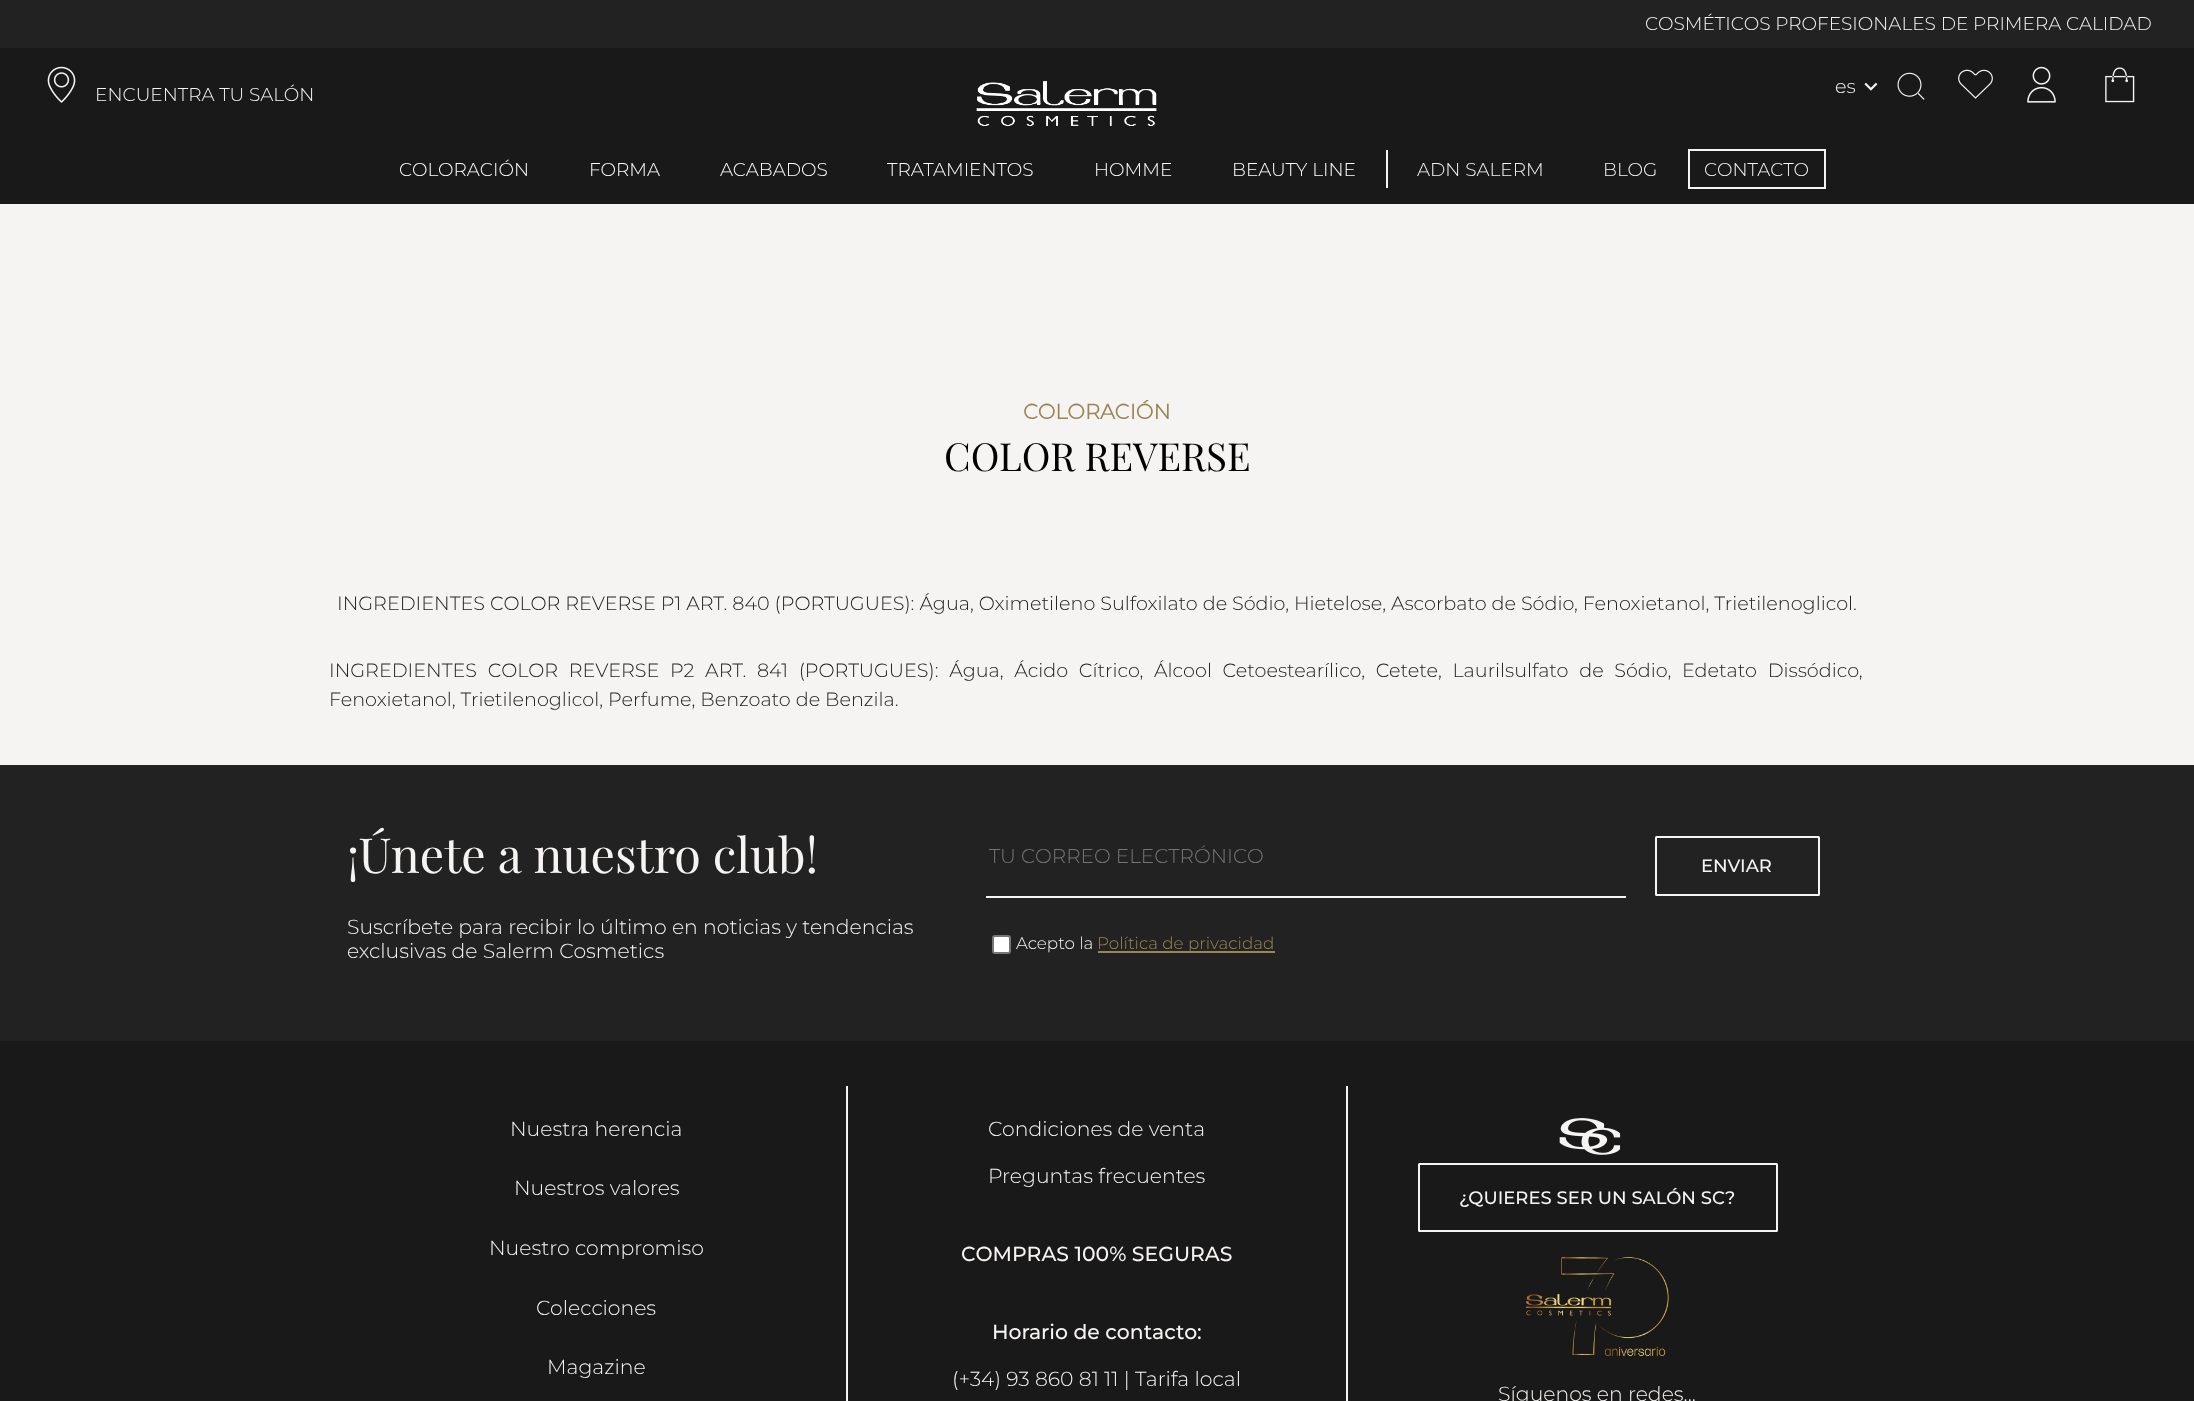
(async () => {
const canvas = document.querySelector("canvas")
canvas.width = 2194
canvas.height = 1401
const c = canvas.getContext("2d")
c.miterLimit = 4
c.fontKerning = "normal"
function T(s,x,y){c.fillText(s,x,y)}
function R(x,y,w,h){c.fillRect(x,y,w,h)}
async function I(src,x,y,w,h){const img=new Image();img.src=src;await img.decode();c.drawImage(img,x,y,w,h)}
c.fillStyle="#f6f4f2"
R(0,0,2194,1401)
c.fillStyle="#1a1919"
R(0,48,2194,156)
c.fillStyle="#222"
R(0,0,2194,48)
c.font="300 18.5px Montserrat"
c.fillStyle="#f6f4f2"
T("COSMÉTICOS PROFESIONALES DE PRIMERA CALIDAD",1645,30)
await I("1.png",47,66,29,37)
T("ENCUENTRA TU SALÓN",95,101)
await I("2.png",976,81,181,45)
c.font="300 19.2px Montserrat"
T("es",1835,93)
await I("3.png",1864,82,14,9)
await I("4.png",1897,72,28,28)
await I("5.png",1958,69,35,30)
await I("6.png",2027,66,29,37)
await I("7.png",2105,67,30,36)
c.font="300 18.5px Montserrat"
c.fillStyle="#fff"
T("COLORACIÓN",399,176)
T("FORMA",589,176)
T("ACABADOS",720,176)
T("TRATAMIENTOS",887,176)
T("HOMME",1094,176)
c.fillStyle="#f6f4f2"
R(1386,150,2,38)
c.fillStyle="#fff"
T("BEAUTY LINE",1232,176)
c.fillStyle="#f6f4f2"
T("ADN SALERM",1417,176)
T("BLOG",1603,176)
c.strokeStyle="#f6f4f2"
c.lineWidth=2
c.strokeRect(1689,150,136,38)
T("CONTACTO",1704,176)
c.font="bold 21px Montserrat"
c.fillStyle="#9a8654"
T("COLORACIÓN",1023,419)
c.font="48px Playfair Display"
c.fillStyle="#000"
T("COLOR REVERSE",944,471)
c.font="300 19.2px Montserrat"
c.fillStyle="#222"
T("INGREDIENTES COLOR REVERSE P1 ART. 840 (PORTUGUES): Água, Oximetileno Sulfoxilato de Sódio, Hietelose, Ascorbato de Sódio, Fenoxietanol, Trietilenoglicol.",337,610)
c.wordSpacing="5.75px"
T("INGREDIENTES COLOR REVERSE P2 ART. 841 (PORTUGUES): Água, Ácido Cítrico, Álcool Cetoestearílico, Cetete, Laurilsulfato de Sódio, Edetato Dissódico,",329,677)
c.wordSpacing="0px"
T("Fenoxietanol, Trietilenoglicol, Perfume, Benzoato de Benzila.",329,706)
c.fillStyle="#1a1919"
R(0,1041,2194,360)
c.fillStyle="#222"
R(0,765,2194,276)
c.font="60px Playfair Display"
c.fillStyle="#f6f4f2"
T("¡Únete a nuestro club!",347,873)
c.font="300 20.4px Montserrat"
T("Suscríbete para recibir lo último en noticias y tendencias",347,934)
T("exclusivas de Salerm Cosmetics",347,958)
R(986,896,640,2)
c.font="300 20px Montserrat"
c.fillStyle="#757575"
T("TU CORREO ELECTRÓNICO",989,863)
c.fillStyle="#fff"
c.beginPath()
c.roundRect(993,936,17,17,2)
c.fill()
c.strokeStyle="#767676"
c.stroke()
c.font="300 16.75px Montserrat"
c.fillStyle="#f6f4f2"
T("Acepto la",1016,949)
c.fillStyle="#9a8654"
R(1098,951,177,2)
T("Política de privacidad",1097,949)
c.beginPath()
c.roundRect(1656,837,163,58,.5)
c.strokeStyle="#f6f4f2"
c.stroke()
c.font="500 18px Montserrat"
c.fillStyle="#f6f4f2"
T("ENVIAR",1701,872)
R(846,1086,2,315)
c.font="300 20.4px Montserrat"
T("Nuestra herencia",510,1136)
T("Nuestros valores",514,1195)
T("Nuestro compromiso",489,1255)
T("Colecciones",536,1315)
T("Magazine",547,1374)
R(1346,1086,2,315)
T("Condiciones de venta",988,1136)
T("Preguntas frecuentes",988,1183)
c.font="500 20.4px Montserrat"
T("COMPRAS 100% SEGURAS",961,1261)
T("Horario de contacto:",992,1339)
c.font="300 20.4px Montserrat"
T("(+34) 93 860 81 11 | Tarifa local",952,1386)
await I("8.png",1559,1118,62,37)
c.beginPath()
c.roundRect(1419,1164,358,67,.5)
c.stroke()
c.font="500 18px Montserrat"
T("¿QUIERES SER UN SALÓN SC?",1459,1204)
await I("9.png",1526,1257,143,99)
c.font="300 20.4px Montserrat"
T("Síguenos en redes...",1498,1401)
})()
